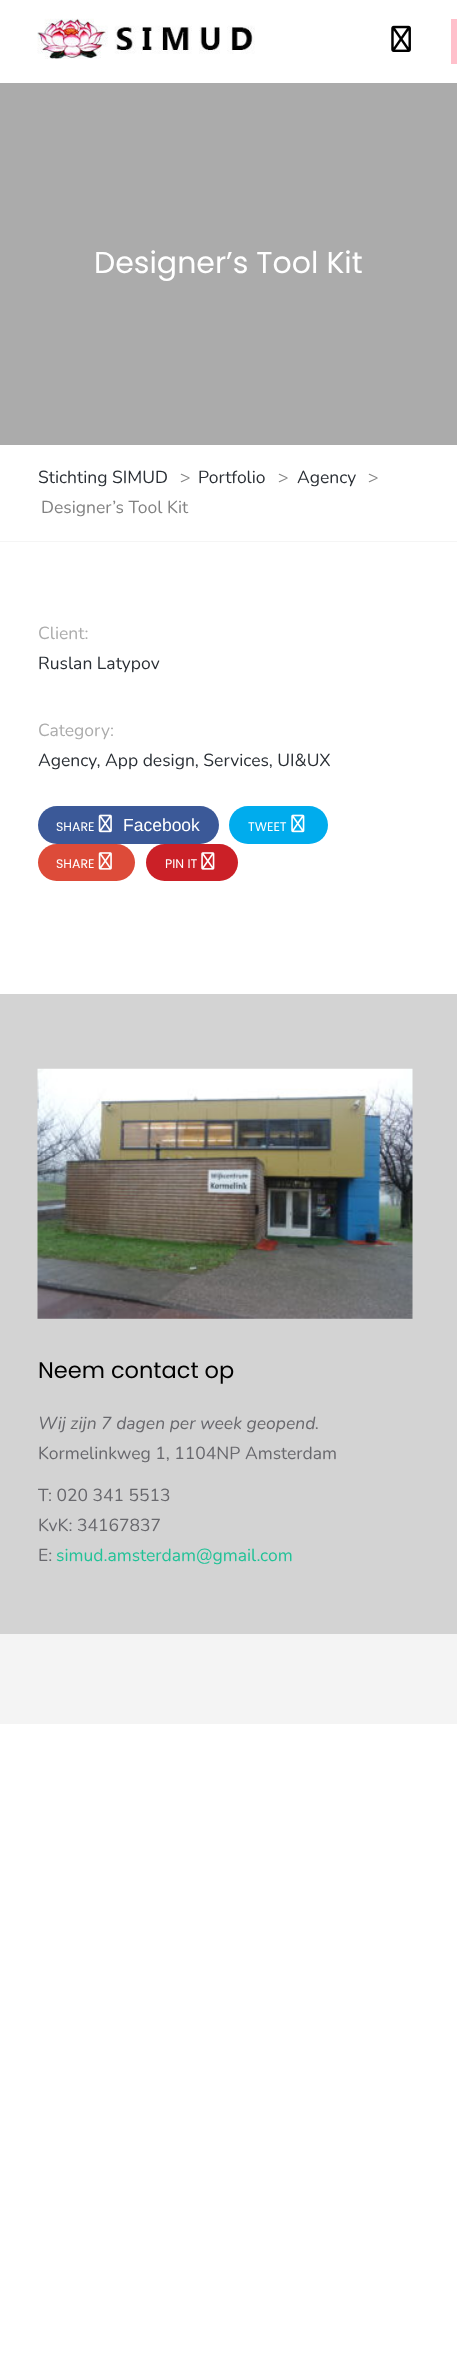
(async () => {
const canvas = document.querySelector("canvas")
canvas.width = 457
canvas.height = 2358
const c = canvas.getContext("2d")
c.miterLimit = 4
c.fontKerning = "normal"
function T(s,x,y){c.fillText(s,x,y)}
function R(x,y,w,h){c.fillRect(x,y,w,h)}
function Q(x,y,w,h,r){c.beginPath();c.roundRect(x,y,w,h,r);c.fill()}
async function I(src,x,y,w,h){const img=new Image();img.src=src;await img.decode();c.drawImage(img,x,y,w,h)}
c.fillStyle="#fff"
R(0,0,457,2358)
c.fillStyle="#ffc0cb"
R(451,19,6,45)
await I("1.png",37,18,218,41)
await I("2.png",391,25,20,27)
c.fillStyle="#ababab"
R(0,83,457,362)
c.font="30px Poppins"
c.fillStyle="#fff"
T("Designer’s Tool Kit",94,273)
c.fillStyle="#f5f5f5"
R(0,541,457,1)
c.font="17.5px Nunito"
c.fillStyle="#2a2f35"
T("Stichting SIMUD",38,483)
c.fillStyle="#828282"
T(">",180,483)
c.fillStyle="#2a2f35"
T("Portfolio",198,483)
c.fillStyle="#828282"
T(">",278,483)
c.fillStyle="#2a2f35"
T("Agency",297,483)
c.fillStyle="#828282"
T(">",368,483)
T("Designer’s Tool Kit",41,513)
c.fillStyle="#acacac"
T("Client:",38,639)
c.fillStyle="#2a2f35"
T("Ruslan Latypov",38,669)
c.fillStyle="#acacac"
T("Category:",38,736)
c.fillStyle="#2a2f35"
T("Agency, App design, Services, UI&UX",38,766)
c.fillStyle="#3b5998"
Q(38,806,181,38,19)
c.font="12.5px Poppins"
c.fillStyle="#fff"
T("SHARE",56,831)
await I("3.png",98,814,14,19)
c.font="17.5px Liberation Sans"
T("Facebook",123,831)
c.fillStyle="#00aced"
Q(229,806,99,38,19)
c.font="12.5px Poppins"
c.fillStyle="#fff"
T("TWEET",248,831)
await I("4.png",291,814,14,19)
c.fillStyle="#dd4b39"
Q(38,844,97,37,18.5)
c.fillStyle="#fff"
T("SHARE",56,868)
await I("5.png",98,852,14,18)
c.fillStyle="#cb2027"
Q(146,844,92,37,18.5)
c.fillStyle="#fff"
T("PIN IT",165,868)
await I("6.png",201,852,14,18)
c.fillStyle="#d3d3d3"
R(0,994,457,640)
await I("7.png",37,1068,376,251)
c.font="22.5px Poppins"
c.fillStyle="#000"
T("Neem contact op",38,1378)
c.font="italic 17.5px Nunito"
c.fillStyle="#68686d"
T("Wij zijn 7 dagen per week geopend.",38,1429)
c.font="17.5px Nunito"
T("Kormelinkweg 1, 1104NP Amsterdam",38,1459)
T("T: 020 341 5513",38,1501)
T("KvK: 34167837",38,1531)
T("E:",38,1561)
c.fillStyle="#21c297"
T("simud.amsterdam@gmail.com",56,1561)
c.fillStyle="#f4f4f4"
R(0,1634,457,90)
})()
